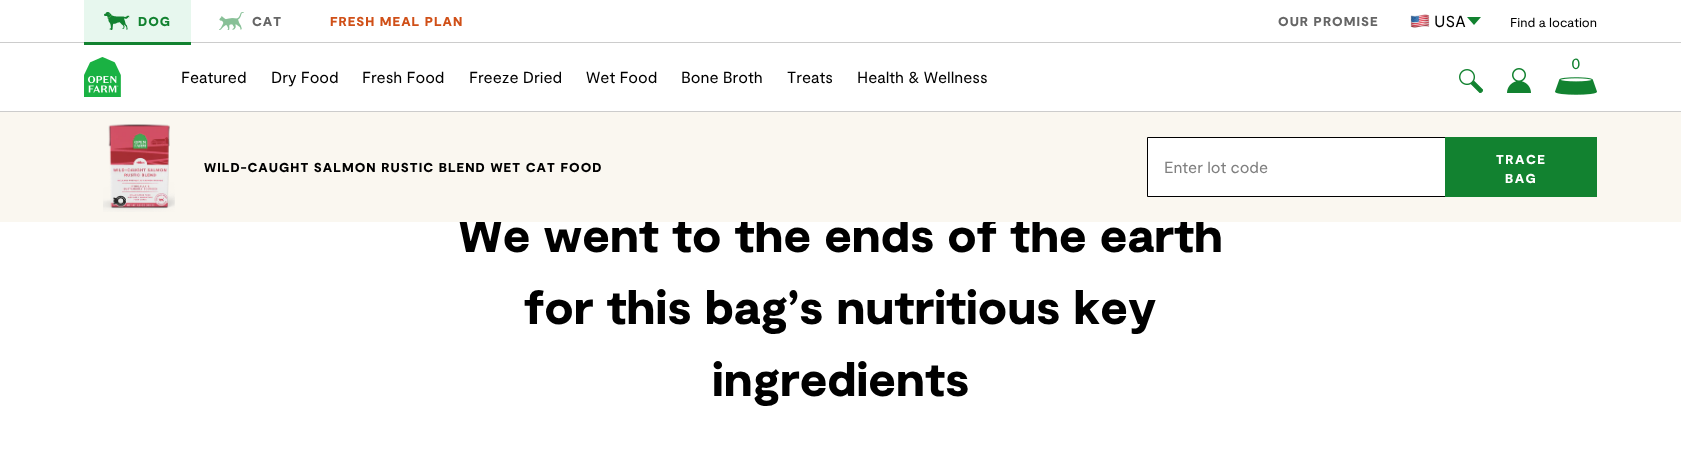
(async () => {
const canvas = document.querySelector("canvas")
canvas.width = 1681
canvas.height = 463
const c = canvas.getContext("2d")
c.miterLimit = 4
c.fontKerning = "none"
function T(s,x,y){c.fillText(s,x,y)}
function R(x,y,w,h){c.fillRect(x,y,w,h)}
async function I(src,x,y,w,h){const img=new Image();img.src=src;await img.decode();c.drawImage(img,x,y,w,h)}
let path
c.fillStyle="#fff"
R(0,0,1681,463)
c.fillStyle="#ccc"
R(0,42,1681,1)
c.fillStyle="#e7f7ee"
R(84,0,107,42)
await I("1.png",104,12,26,18)
c.letterSpacing="1px"
c.font="900 13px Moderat"
c.fillStyle="#128230"
T("DOG",138,26)
R(84,42,107,3)
await I("2.png",219,12,25,18)
c.fillStyle="#666"
T("CAT",252,26)
c.fillStyle="#d05018"
T("FRESH MEAL PLAN",330,26)
c.fillStyle="#666"
T("OUR PROMISE",1278,26)
await I("3.png",1410,14,20,14)
c.letterSpacing="0px"
c.font="16px Moderat"
c.fillStyle="#000"
T("USA",1434,27)
c.fillStyle="#128230"
path = new Path2D("M1481 17l-7 8l-7-8z")
c.fill(path)
c.font="13px Moderat"
c.fillStyle="#000"
T("Find a location",1510,27)
c.fillStyle="#ccc"
R(0,111,1681,1)
c.font="16px Moderat"
c.fillStyle="#128230"
T("0",1571,69)
await I("4.png",1555,77,42,18)
await I("5.png",1459,69,24,24)
await I("6.png",1507,68,24,25)
await I("7.png",84,57,37,40)
c.fillStyle="#000"
T("Featured",181,83)
T("Dry Food",271,83)
T("Fresh Food",362,83)
T("Freeze Dried",469,83)
T("Wet Food",586,83)
T("Bone Broth",681,83)
T("Treats",787,83)
T("Health & Wellness",857,83)
c.font="900 48px Moderat"
T("We went to the ends of the earth",458,252)
c.fillStyle="#faf7f0"
R(0,112,1681,110)
await I("8.png",103,124,72,88)
c.letterSpacing="1.05px"
c.font="900 13px Moderat"
c.fillStyle="#000"
T("WILD-CAUGHT SALMON RUSTIC BLEND WET CAT FOOD",204,172)
c.fillStyle="#fff"
c.beginPath()
c.rect(1147.5,137.5,298,59)
c.fill()
c.strokeStyle="#000"
c.stroke()
c.letterSpacing="0px"
c.font="16px Moderat"
c.fillStyle="#808080"
T("Enter lot code",1164,173)
c.fillStyle="#128230"
R(1445,137,152,60)
c.letterSpacing="1.5px"
c.font="900 13px Moderat"
c.fillStyle="#fff"
T("TRACE",1496,164)
T("BAG",1505,183)
c.letterSpacing="0px"
c.font="900 48px Moderat"
c.fillStyle="#000"
T("for this bag’s nutritious key",524,324)
T("ingredients",712,396)
})()
